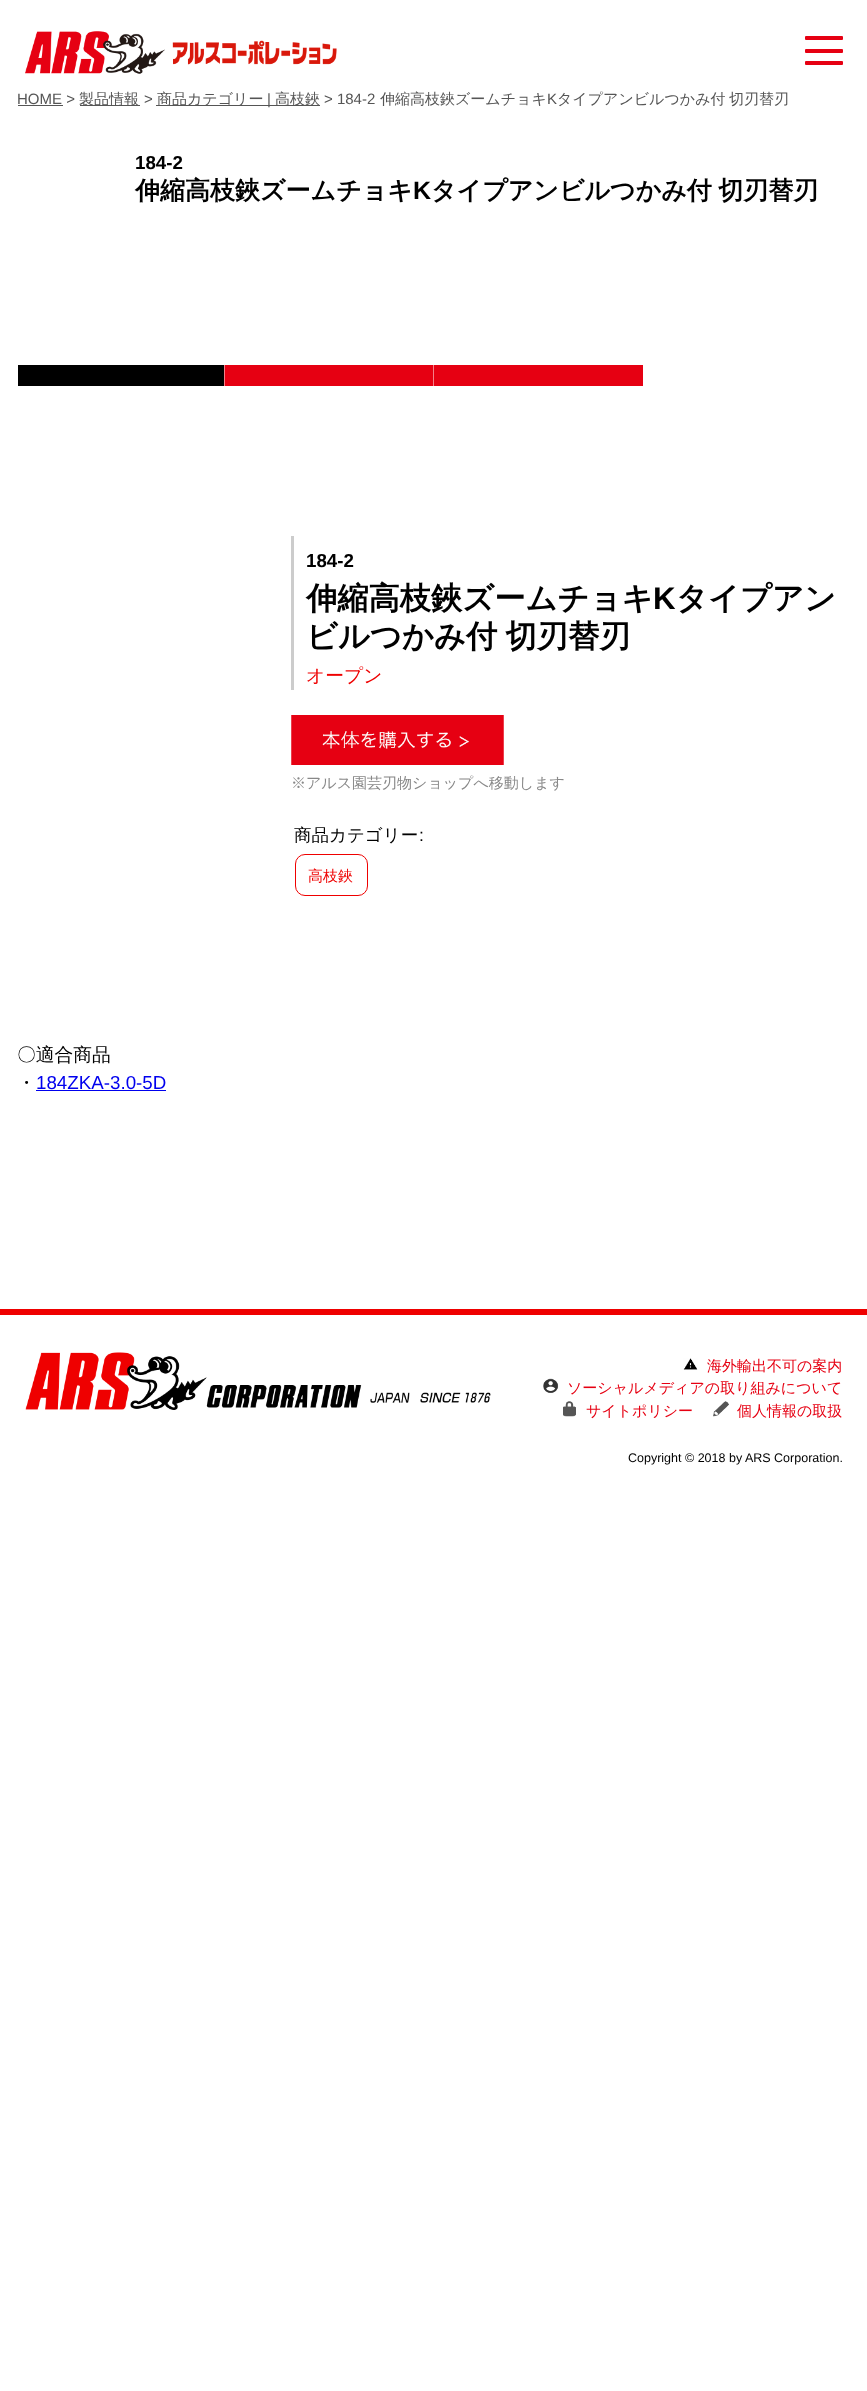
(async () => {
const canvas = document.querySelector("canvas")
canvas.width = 867
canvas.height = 2391
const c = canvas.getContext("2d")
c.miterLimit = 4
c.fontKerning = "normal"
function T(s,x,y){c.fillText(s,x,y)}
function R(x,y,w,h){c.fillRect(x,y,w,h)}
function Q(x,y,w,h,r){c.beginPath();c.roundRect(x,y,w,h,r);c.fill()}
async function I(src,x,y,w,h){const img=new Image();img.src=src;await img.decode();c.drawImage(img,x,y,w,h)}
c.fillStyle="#fff"
R(0,0,867,2391)
await I("1.png",25,31,312,43)
c.fillStyle="#e60012"
Q(805,49,38,4,1)
Q(805,36,38,4,1)
Q(805,61,38,4,1)
c.font="15px Liberation Sans"
c.fillStyle="#555"
T("HOME >",17,104)
R(18,105,45,1)
R(80,105,60,1)
c.font="500 15px WenQuanYi Zen Hei"
T("製品情報",79,104)
c.font="15px Liberation Sans"
T(">",144,104)
R(156,105,164,1)
c.font="500 15px WenQuanYi Zen Hei"
T("商品カテゴリー",157,104)
c.font="15px Liberation Sans"
T("|",267,104)
c.font="500 15px WenQuanYi Zen Hei"
T("高枝鋏",275,104)
c.font="15px Liberation Sans"
T("> 184-2",324,104)
c.font="500 15px WenQuanYi Zen Hei"
T("伸縮高枝鋏ズームチョキ",380,104)
c.font="15px Liberation Sans"
T("K",547,104)
c.font="500 15px WenQuanYi Zen Hei"
T("タイプアンビルつかみ付",557,104)
T("切刃替刃",729,104)
c.font="bold 18.75px Liberation Sans"
c.fillStyle="#000"
T("184-2",135,169)
c.font="bold 25px WenQuanYi Zen Hei"
T("伸縮高枝鋏ズームチョキ",135,199)
c.font="bold 25px Liberation Sans"
T("K",413,199)
c.wordSpacing="-1px"
c.font="bold 25px WenQuanYi Zen Hei"
T("タイプアンビルつかみ付 切刃替刃",431,199)
c.fillStyle="#f38089"
R(224,365,1,21)
c.fillStyle="#000"
R(18,365,206,21)
c.fillStyle="#e60012"
R(225,365,208,21)
c.fillStyle="#f38089"
R(433,365,1,21)
c.fillStyle="#e60012"
R(434,365,209,21)
c.fillStyle="#ccc"
R(291,536,3,154)
c.wordSpacing="0px"
c.font="bold 18.75px Liberation Sans"
c.fillStyle="#000"
T("184-2",306,567)
c.font="bold 31.25px WenQuanYi Zen Hei"
T("伸縮高枝鋏ズームチョキ",306,609)
c.font="bold 31.25px Liberation Sans"
T("K",653,609)
c.font="bold 31.25px WenQuanYi Zen Hei"
T("タイプアン",676,609)
c.wordSpacing="-1px"
T("ビルつかみ付 切刃替刃",306,647)
c.wordSpacing="0px"
c.font="500 18.75px WenQuanYi Zen Hei"
c.fillStyle="#ef0000"
T("オープン",306,682)
await I("2.png",291,715,213,50)
c.font="500 15px WenQuanYi Zen Hei"
c.fillStyle="#888"
T("※アルス園芸刃物ショップへ移動します",291,788)
c.font="500 17.5px WenQuanYi Zen Hei"
c.fillStyle="#000"
T("商品カテゴリー",294,841)
c.font="17.5px Liberation Sans"
T(":",419,841)
c.beginPath()
c.roundRect(295.5,854.5,72,41,9.5)
c.strokeStyle="#ef0000"
c.stroke()
c.font="500 15px WenQuanYi Zen Hei"
c.fillStyle="#ef0000"
T("高枝鋏",308,881)
c.font="500 18.75px WenQuanYi Zen Hei"
c.fillStyle="#000"
T("〇適合商品",17,1061)
T("・",17,1089)
c.font="18.75px Liberation Sans"
c.fillStyle="#00e"
T("184ZKA-3.0-5D",36,1089)
R(36,1090,130,1)
c.fillStyle="#ef0000"
R(0,1309,867,6)
await I("3.png",25,1352,466,58)
await I("4.png",683,1358,15,12)
c.font="500 15px WenQuanYi Zen Hei"
c.fillStyle="#e60012"
T("海外輸出不可の案内",707,1371)
await I("5.png",543,1378,16,15)
T("ソーシャルメディアの取り組みについて",567,1393)
await I("6.png",563,1401,13,16)
T("サイトポリシー",586,1416)
await I("7.png",713,1401,16,16)
T("個人情報の取扱",737,1416)
c.font="12.5px Liberation Sans"
c.fillStyle="#000"
T("Copyright © 2018 by ARS Corporation.",628,1462)
})()
